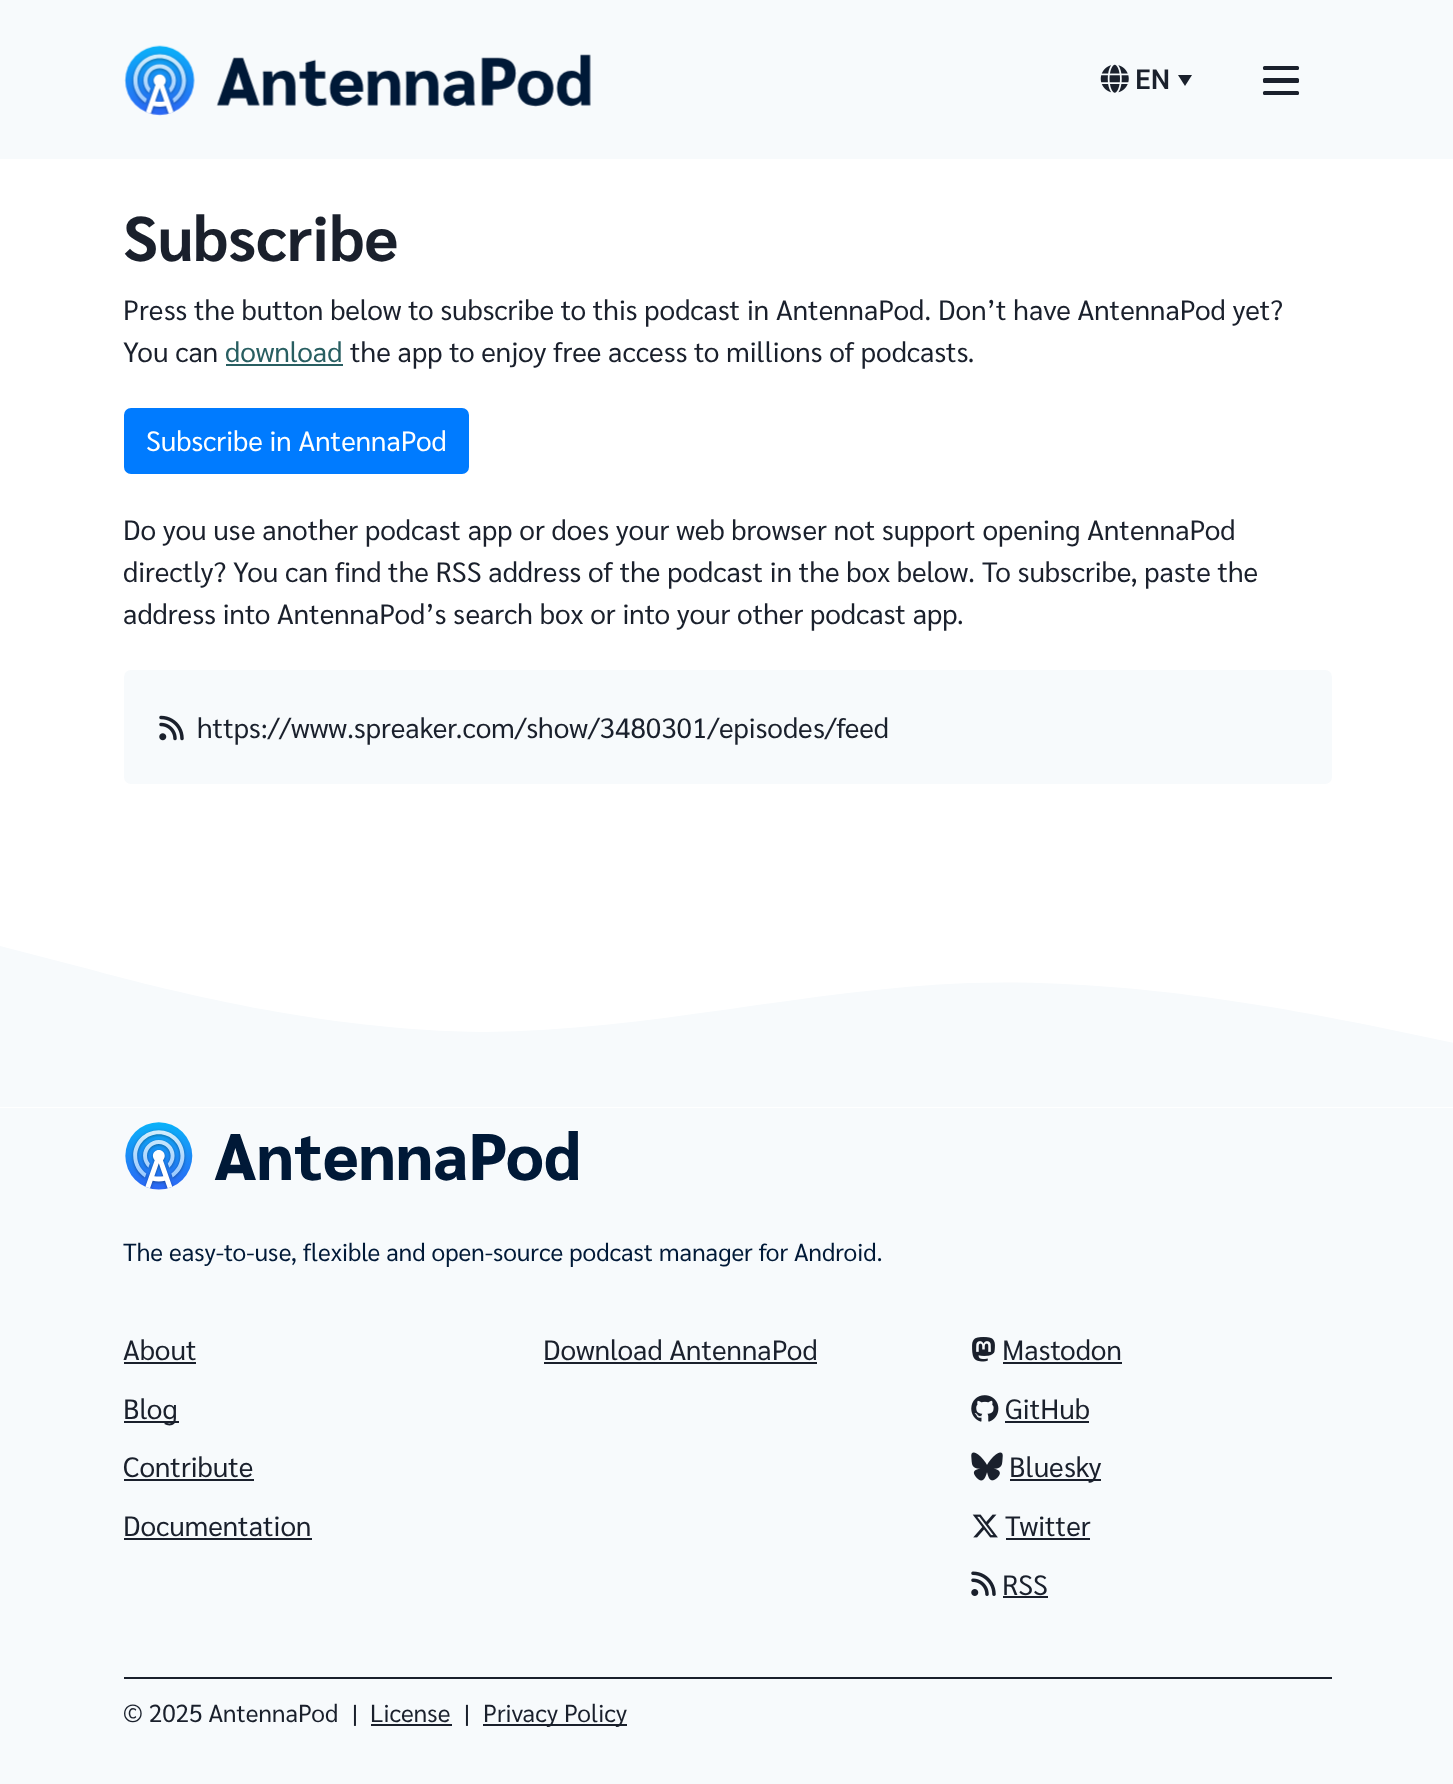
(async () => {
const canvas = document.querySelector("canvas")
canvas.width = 1453
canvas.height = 1784
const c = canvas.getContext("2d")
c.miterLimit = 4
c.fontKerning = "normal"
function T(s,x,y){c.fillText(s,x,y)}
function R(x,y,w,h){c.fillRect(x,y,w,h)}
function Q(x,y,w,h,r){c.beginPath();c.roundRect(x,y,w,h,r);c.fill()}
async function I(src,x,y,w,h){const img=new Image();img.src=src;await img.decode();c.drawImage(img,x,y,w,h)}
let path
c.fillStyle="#fff"
R(0,0,1453,1784)
c.fillStyle="#f7fafc"
R(0,0,1453,159)
await I("1.png",124,45,467,71)
await I("2.png",1100,64,29,29)
c.font="600 28px Sarabun"
c.fillStyle="#1a202c"
T("EN",1135,89)
path = new Path2D("M1178 75h14l-7 11z")
c.fill(path)
Q(1263,66,36,4,1.5)
Q(1263,78,36,5,1.5)
Q(1263,91,36,4,1.5)
c.font="bold 63px Sarabun"
T("Subscribe",123,261)
c.font="28px Sarabun"
T("Press the button below to subscribe to this podcast in AntennaPod. Don’t have AntennaPod yet?",123,320)
T("You can",123,362)
c.fillStyle="#285e61"
T("download",225,362)
R(226,364,117,2)
c.fillStyle="#1a202c"
T("the app to enjoy free access to millions of podcasts.",350,362)
c.fillStyle="#007bff"
c.beginPath()
c.roundRect(125,409,343,64,6)
c.fill()
c.strokeStyle="#007bff"
c.lineWidth=2
c.stroke()
c.fillStyle="#fff"
T("Subscribe in AntennaPod",146,451)
c.fillStyle="#1a202c"
T("Do you use another podcast app or does your web browser not support opening AntennaPod",123,540)
T("directly? You can find the RSS address of the podcast in the box below. To subscribe, paste the",123,582)
T("address into AntennaPod’s search box or into your other podcast app.",123,624)
c.fillStyle="#f7fafc"
Q(124,670,1208,114,7)
await I("3.png",159,715,25,26)
c.fillStyle="#1a202c"
T("https://www.spreaker.com/show/3480301/episodes/feed",197,738)
c.fillStyle="#f7fafc"
path = new Path2D("M0 946l81 21c81 22 242 64 404 65c161-1 323-43 484-49c162-5 324 27 404 43l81 17v64h-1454z")
c.fill(path)
R(0,1108,1453,676)
await I("4.png",125,1122,453,68)
c.font="24.5px Sarabun"
c.fillStyle="#001937"
T("The easy-to-use, flexible and open-source podcast manager for Android.",123,1261)
c.font="28px Sarabun"
c.fillStyle="#1a202c"
T("About",123,1360)
R(124,1362,72,2)
R(124,1421,55,2)
T("Blog",123,1419)
T("Contribute",123,1477)
R(124,1479,130,2)
T("Documentation",123,1536)
R(124,1538,188,2)
T("Download AntennaPod",543,1360)
R(544,1362,273,2)
await I("5.png",972,1337,23,25)
T("Mastodon",1002,1360)
R(1003,1362,119,2)
await I("6.png",971,1395,28,27)
T("GitHub",1005,1419)
R(1005,1421,84,2)
await I("7.png",971,1452,32,29)
R(1010,1479,91,2)
T("Bluesky",1009,1477)
await I("8.png",972,1514,26,24)
T("Twitter",1005,1536)
R(1006,1538,84,2)
await I("9.png",971,1571,25,25)
T("RSS",1002,1595)
R(1003,1596,45,2)
R(124,1677,1208,2)
c.font="24.5px Sarabun"
T("© 2025 AntennaPod",123,1722)
T("|",352,1722)
T("License",370,1722)
R(371,1724,81,2)
T("|",464,1722)
R(483,1724,144,2)
T("Privacy Policy",483,1722)
})()
